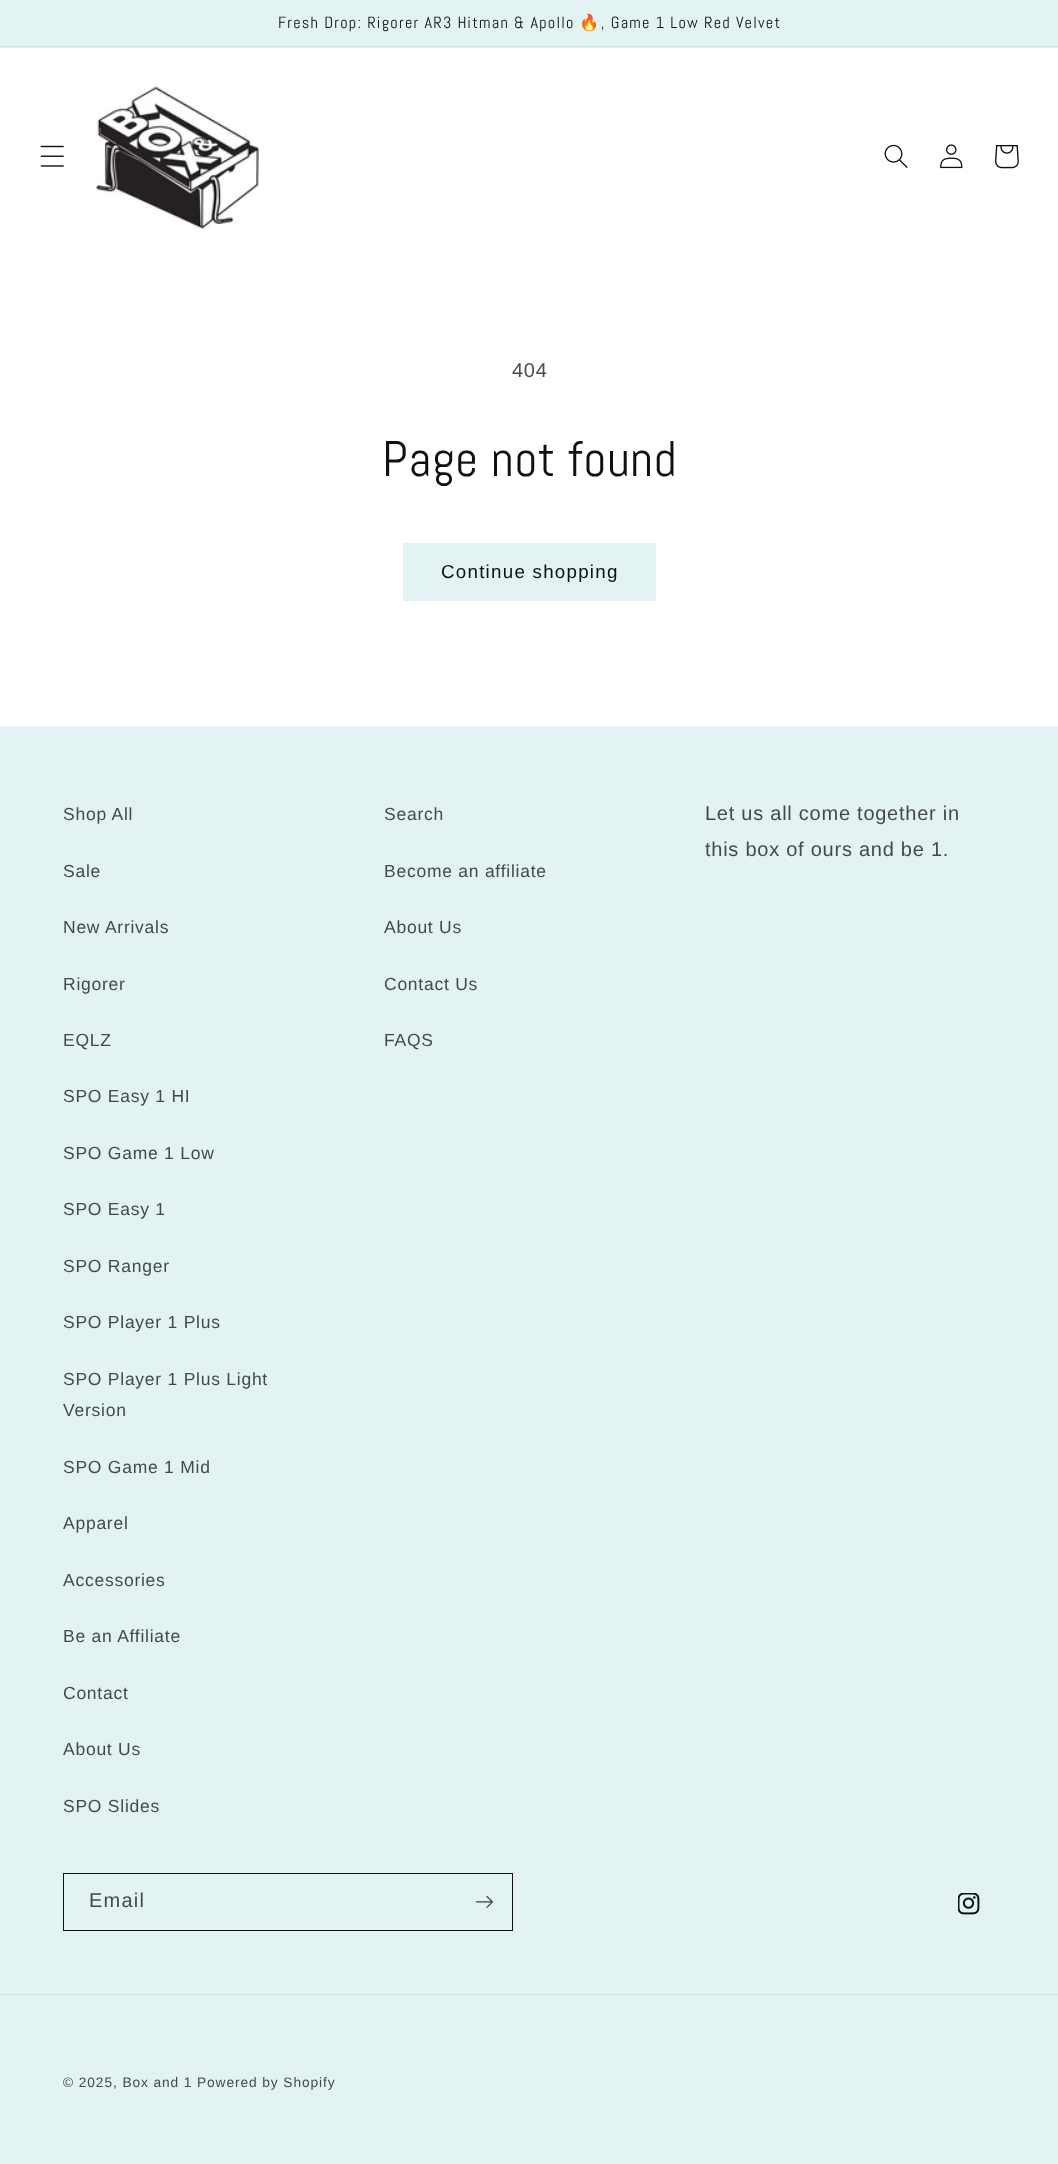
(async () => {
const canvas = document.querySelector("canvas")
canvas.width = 1058
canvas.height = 2164
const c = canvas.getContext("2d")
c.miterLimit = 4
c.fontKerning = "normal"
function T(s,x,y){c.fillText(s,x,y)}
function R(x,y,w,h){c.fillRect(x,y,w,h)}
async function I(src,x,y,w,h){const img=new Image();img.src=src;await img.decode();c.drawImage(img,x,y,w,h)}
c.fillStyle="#fff"
R(0,0,1058,2164)
c.fillStyle="#e3f3f4"
R(0,0,1058,48)
c.fillStyle="#d2e1e2"
R(0,46,1058,1)
c.letterSpacing="1.25px"
c.font="16.25px Abel"
c.fillStyle="#101010"
T("Fresh Drop: Rigorer AR3 Hitman & Apollo",278,28)
c.font="16.25px Noto Color Emoji"
T("🔥",579,28)
c.font="16.25px Abel"
T(", Game 1 Low Red Velvet",601,28)
await I("1.png",40,145,24,22)
await I("2.png",95,86,164,143)
await I("3.png",884,144,24,24)
await I("4.png",940,144,23,25)
await I("5.png",995,145,24,24)
c.letterSpacing="0.75px"
c.font="20px Liberation Sans"
c.fillStyle="#4c4c4c"
T("404",512,377)
c.font="50px Abel"
c.fillStyle="#101010"
T("Page not found",382,476)
c.fillStyle="#e3f3f4"
R(403,543,253,58)
c.letterSpacing="1.25px"
c.font="18.75px Liberation Sans"
c.fillStyle="#101010"
T("Continue shopping",441,578)
c.fillStyle="#e3f3f4"
R(0,726,1058,1438)
c.letterSpacing="0.75px"
c.font="17.5px Liberation Sans"
c.fillStyle="#454949"
T("Shop All",63,820)
T("Sale",63,877)
T("New Arrivals",63,933)
T("Rigorer",63,990)
T("EQLZ",63,1046)
T("SPO Easy 1 HI",63,1102)
T("SPO Game 1 Low",63,1159)
T("SPO Easy 1",63,1215)
T("SPO Ranger",63,1272)
T("SPO Player 1 Plus",63,1328)
T("SPO Player 1 Plus Light",63,1385)
T("Version",63,1416)
T("SPO Game 1 Mid",63,1473)
T("Apparel",63,1529)
T("Accessories",63,1586)
T("Be an Affiliate",63,1642)
T("Contact",63,1699)
T("About Us",63,1755)
T("SPO Slides",63,1812)
T("Search",384,820)
T("Become an affiliate",384,877)
T("About Us",384,933)
T("Contact Us",384,990)
T("FAQS",384,1046)
c.font="20px Liberation Sans"
T("Let us all come together in",705,820)
T("this box of ours and be 1.",705,856)
c.strokeStyle="#101010"
c.strokeRect(63.5,1873.5,449,57)
c.letterSpacing="1.25px"
T("Email",89,1907)
await I("6.png",475,1895,18,13)
await I("7.png",958,1893,22,22)
c.fillStyle="#d2e1e2"
R(0,1994,1058,1)
c.letterSpacing="0.9px"
c.font="13.75px Liberation Sans"
c.fillStyle="#454949"
T("© 2025, Box and 1",63,2087)
T("Powered by Shopify",197,2087)
})()
